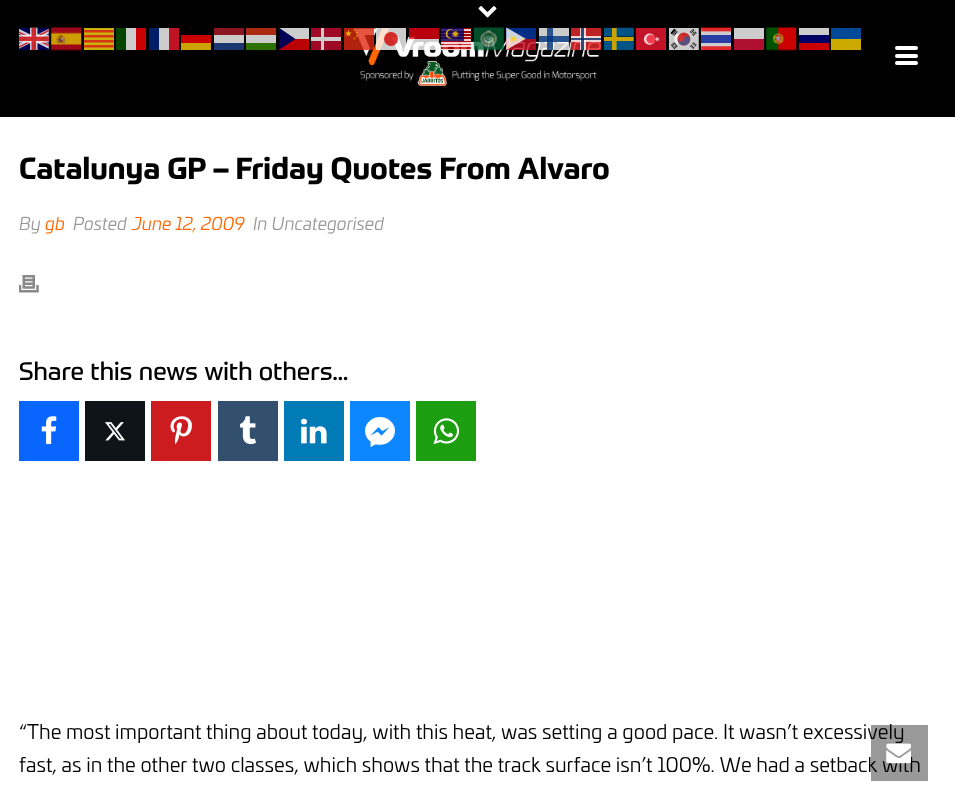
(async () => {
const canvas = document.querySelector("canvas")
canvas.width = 955
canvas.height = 799
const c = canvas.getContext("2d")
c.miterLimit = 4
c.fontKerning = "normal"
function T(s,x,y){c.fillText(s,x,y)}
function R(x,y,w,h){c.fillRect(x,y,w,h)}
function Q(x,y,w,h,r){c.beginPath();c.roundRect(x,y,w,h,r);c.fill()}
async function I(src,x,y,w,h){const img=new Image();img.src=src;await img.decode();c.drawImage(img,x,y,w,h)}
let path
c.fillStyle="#fff"
R(0,0,955,799)
c.fillStyle="#000"
R(0,0,955,117)
await I("1.png",19,27,30,23)
await I("2.png",51,27,31,24)
await I("3.png",84,28,30,22)
c.fillStyle="#004600"
R(116,28,10,22)
c.fillStyle="#ccc"
R(126,28,10,22)
c.fillStyle="#ca0000"
R(136,28,10,22)
c.fillStyle="#001e66"
R(149,28,10,22)
c.fillStyle="#ccc"
R(159,28,10,22)
c.fillStyle="#c21326"
R(169,28,10,22)
c.fillStyle="#8b1620"
R(214,28,30,7)
c.fillStyle="#aa2a12"
R(246,28,30,7)
c.fillStyle="#ccc"
R(279,28,30,11)
c.fillStyle="#ba0000"
R(279,39,30,11)
c.save()
c.beginPath()
c.rect(279,24,30,30)
c.clip()
c.fillStyle="#000059"
path = new Path2D("M278.5 27.5l17 11.5l-17 11z")
c.fill(path)
c.restore()
await I("14.png",354,28,247,58)
await I("4.png",473,27,31,24)
await I("5.png",506,27,30,23)
await I("6.png",604,27,30,23)
await I("7.png",701,27,30,23)
await I("8.png",766,27,31,24)
c.fillStyle="#9e0a26"
R(311,28,30,22)
c.fillStyle="#ccc"
R(321,28,3,22)
await I("9.png",344,28,30,22)
c.fillStyle="#ffffffcc"
R(376,28,30,22)
c.fillStyle="#e70011cc"
R(409,28,30,11)
await I("10.png",441,28,30,22)
c.fillStyle="#ffffffcc"
R(539,28,30,22)
c.fillStyle="#003580cc"
R(539,36,30,6)
R(547,28,6,22)
c.fillStyle="#ef2b2dcc"
R(571,28,30,22)
c.fillStyle="#ffffffcc"
R(580,28,6,22)
c.fillStyle="#c00"
R(181,35,30,8)
c.fillStyle="#ccc"
R(214,35,30,8)
R(246,35,30,8)
c.fillStyle="#d30000cc"
c.beginPath()
c.arc(391,39,7,0,7)
c.fill()
c.fillStyle="#ffffffcc"
R(571,36,30,6)
c.fillStyle="#002868cc"
R(581,28,3,22)
await I("11.png",636,28,30,22)
await I("12.png",669,28,30,22)
c.fillStyle="#ccc"
R(734,28,30,11)
R(799,28,30,7)
c.fillStyle="#004996"
R(831,28,30,11)
c.fillStyle="#ccc"
R(311,37,30,4)
c.fillStyle="#010165"
R(799,35,30,8)
c.fillStyle="#cca300"
R(181,43,30,7)
c.fillStyle="#1a386f"
R(214,43,30,7)
c.fillStyle="#2d7100"
R(246,43,30,7)
c.fillStyle="#ffffffcc"
R(409,39,30,11)
c.fillStyle="#002868cc"
R(571,38,30,2)
c.fillStyle="#b01030"
R(734,39,30,11)
c.fillStyle="#cb0101"
R(799,43,30,7)
c.fillStyle="#ca0"
R(831,39,30,11)
await I("13.png",478,6,19,12)
c.fillStyle="#fff"
Q(895,46,23,4,2)
Q(895,54,23,4,2)
Q(895,61,23,4,2)
c.font="bold 30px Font"
c.fillStyle="#000"
T("Catalunya GP – Friday Quotes From Alvaro",19,179)
c.font="italic 17.5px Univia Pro"
c.fillStyle="#999"
T("By",19,230)
c.fillStyle="#f60"
T("gb",45,230)
c.fillStyle="#999"
T("Posted",73,230)
c.fillStyle="#f60"
T("June 12, 2009",132,230)
c.fillStyle="#999"
T("In Uncategorised",253,230)
await I("15.png",19,275,20,18)
c.font="25px Font"
c.fillStyle="#000"
T("Share this news with others...",19,380)
c.fillStyle="#0866ff"
R(19,401,60,60)
await I("16.png",41,416,16,29)
c.fillStyle="#0f1419"
R(85,401,60,60)
await I("17.png",105,422,20,19)
c.fillStyle="#cd1c1f"
R(151,401,60,60)
await I("18.png",170,416,22,28)
c.fillStyle="#32506d"
R(218,401,60,60)
await I("19.png",240,416,16,29)
c.fillStyle="#007bb6"
R(284,401,60,60)
await I("20.png",300,418,27,26)
c.fillStyle="#0d87ff"
R(350,401,60,60)
c.font="30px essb"
c.fillStyle="#fff"
T("*",365,447)
c.fillStyle="#1d9e11"
R(416,401,60,60)
await I("21.png",433,418,27,27)
c.font="20px Univia Pro"
c.fillStyle="#000"
T("“The most important thing about today, with this heat, was setting a good pace. It wasn’t excessively",19,739)
T("fast, as in the other two classes, which shows that the track surface isn’t 100%. We had a setback with",19,772)
c.fillStyle="#00000066"
R(871,725,57,56)
await I("22.png",886,743,25,21)
})()
